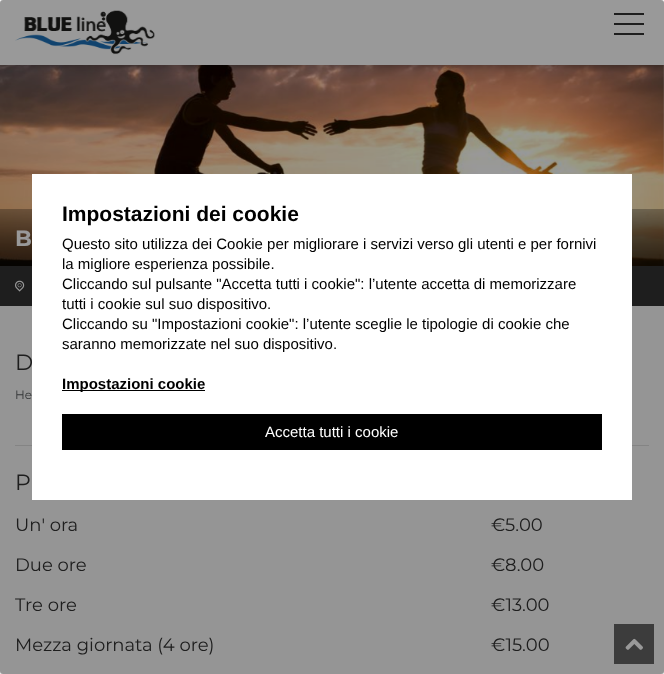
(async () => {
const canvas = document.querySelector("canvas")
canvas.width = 664
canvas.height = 674
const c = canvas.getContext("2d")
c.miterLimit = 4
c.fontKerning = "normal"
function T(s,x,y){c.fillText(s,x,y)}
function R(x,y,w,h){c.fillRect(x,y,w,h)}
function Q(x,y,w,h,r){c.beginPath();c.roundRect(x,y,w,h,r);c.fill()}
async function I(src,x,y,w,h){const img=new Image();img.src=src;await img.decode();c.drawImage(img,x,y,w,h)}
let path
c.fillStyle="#f9f9f9"
R(0,0,664,674)
await I("2.png",0,65,664,201)
c.fillStyle="#00000069"
c.filter="blur(5px)"
c.beginPath()
c.rect(2,4,660,61)
c.fill()
c.filter="none"
c.fillStyle="#fff"
R(0,0,664,65)
await I("1.png",15,10,140,45)
c.fillStyle="#333"
R(614,23,30,2)
R(614,13,30,2)
R(614,33,30,2)
await I("3.png",0,209,664,57)
c.font="bold 22px Montserrat"
c.fillStyle="#fff"
T("B",15,246)
c.fillStyle="#333"
R(0,266,664,40)
await I("4.png",15,280,10,12)
c.fillStyle="#ddd"
R(15,445,634,1)
c.fillStyle="#646464"
R(614,624,40,40)
await I("5.png",625,638,18,12)
c.save()
path = new Path2D("M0 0h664v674h-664zm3 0h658c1.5 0 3 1.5 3 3v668c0 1.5-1.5 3-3 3h-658c-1.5 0-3-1.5-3-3v-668c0-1.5 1.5-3 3-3z")
c.clip(path,"evenodd")
c.fillStyle="#0000001a"
c.filter="blur(2.5px)"
c.beginPath()
c.roundRect(0,2,664,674,3)
c.fill()
c.filter="none"
c.restore()
c.font="22px Montserrat"
c.fillStyle="#333"
T("D",15,370)
c.font="12px Montserrat"
c.fillStyle="#565a5c"
T("He",15,399)
c.font="22px Montserrat"
c.fillStyle="#333"
T("P",15,490)
c.font="18px Montserrat"
T("Un' ora",15,531)
T("€5.00",491,531)
T("Due ore",15,571)
T("€8.00",491,571)
T("Tre ore",15,611)
T("€13.00",491,611)
T("Mezza giornata (4 ore)",15,651)
T("€15.00",491,651)
c.fillStyle="#00000066"
Q(0,0,664,674,3)
c.fillStyle="#fff"
R(32,174,600,326)
c.font="bold 21px Liberation Sans"
c.fillStyle="#000"
T("Impostazioni dei cookie",62,221)
c.font="15px Liberation Sans"
T("Questo sito utilizza dei Cookie per migliorare i servizi verso gli utenti e per fornivi",62,249)
T("la migliore esperienza possibile.",62,269)
T("Cliccando sul pulsante \"Accetta tutti i cookie\": l’utente accetta di memorizzare",62,289)
T("tutti i cookie sul suo dispositivo.",62,309)
T("Cliccando su \"Impostazioni cookie\": l’utente sceglie le tipologie di cookie che",62,329)
T("saranno memorizzate nel suo dispositivo.",62,349)
R(62,390,143,1)
c.font="bold 15px Liberation Sans"
T("Impostazioni cookie",62,389)
R(62,414,540,36)
c.font="15px Liberation Sans"
c.fillStyle="#fff"
T("Accetta tutti i cookie",265,437)
})()
